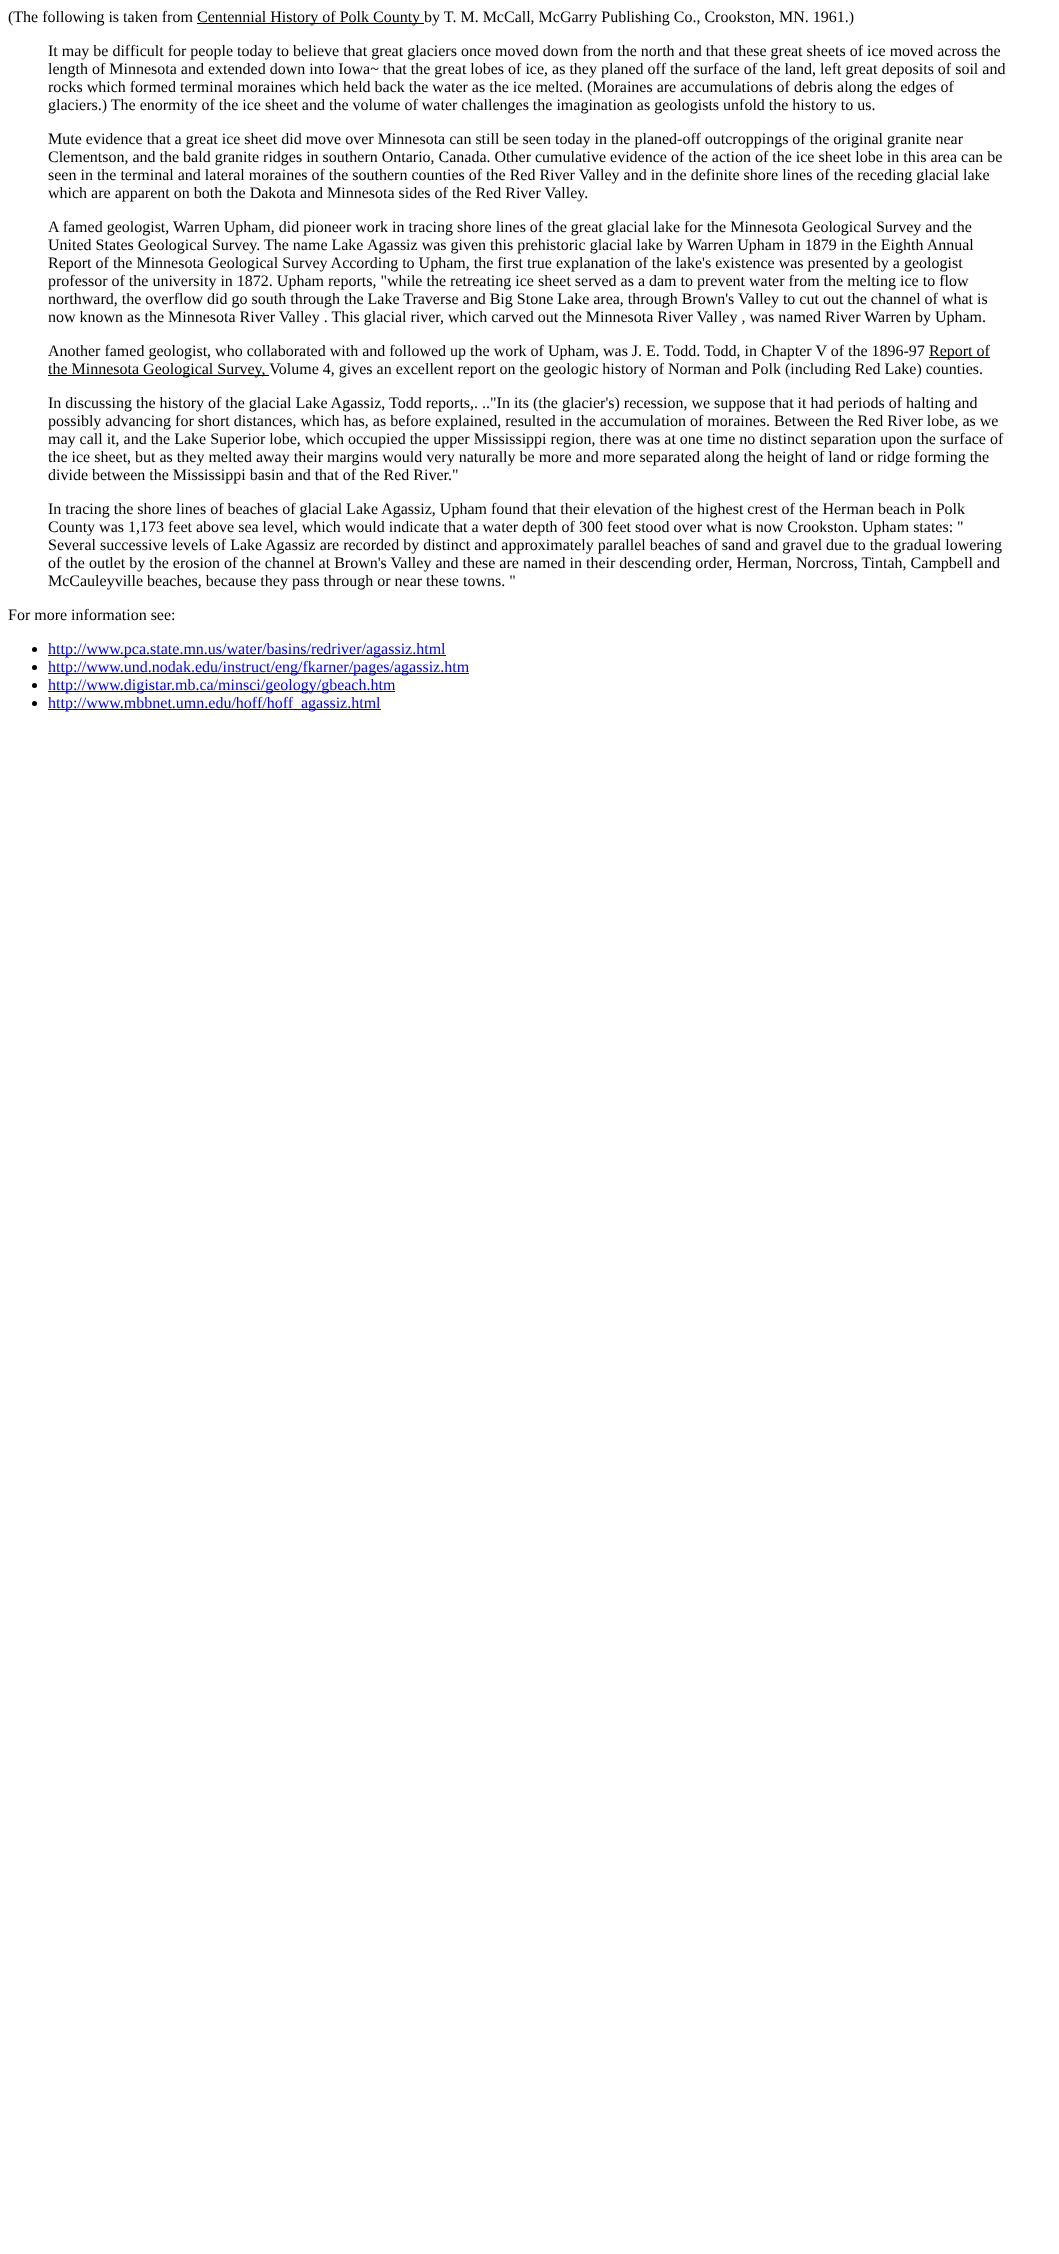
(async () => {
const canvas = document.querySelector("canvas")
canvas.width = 1059
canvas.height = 2254
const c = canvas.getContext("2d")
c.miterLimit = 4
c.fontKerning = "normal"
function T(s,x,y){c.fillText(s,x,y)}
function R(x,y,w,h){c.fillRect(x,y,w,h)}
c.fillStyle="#fff"
R(0,0,1059,2254)
c.font="16px Liberation Serif"
c.fillStyle="#000"
T("(The following is taken from",8,22)
R(197,23,227,1)
T("Centennial History of Polk County by T. M. McCall, McGarry Publishing Co., Crookston, MN. 1961.)",197,22)
T("It may be difficult for people today to believe that great glaciers once moved down from the north and that these great sheets of ice moved across the",48,56)
T("length of Minnesota and extended down into Iowa~ that the great lobes of ice, as they planed off the surface of the land, left great deposits of soil and",48,74)
T("rocks which formed terminal moraines which held back the water as the ice melted. (Moraines are accumulations of debris along the edges of",48,92)
T("glaciers.) The enormity of the ice sheet and the volume of water challenges the imagination as geologists unfold the history to us.",48,110)
T("Mute evidence that a great ice sheet did move over Minnesota can still be seen today in the planed-off outcroppings of the original granite near",48,144)
T("Clementson, and the bald granite ridges in southern Ontario, Canada. Other cumulative evidence of the action of the ice sheet lobe in this area can be",48,162)
T("seen in the terminal and lateral moraines of the southern counties of the Red River Valley and in the definite shore lines of the receding glacial lake",48,180)
T("which are apparent on both the Dakota and Minnesota sides of the Red River Valley.",48,198)
T("A famed geologist, Warren Upham, did pioneer work in tracing shore lines of the great glacial lake for the Minnesota Geological Survey and the",48,232)
T("United States Geological Survey. The name Lake",48,250)
T("Agassiz was given this prehistoric glacial lake by Warren Upham in 1879 in the Eighth Annual",367,250)
T("Report of the Minnesota Geological Survey According to Upham, the first true explanation of the lake's existence was presented by a geologist",48,268)
T("professor of the university in 1872. Upham reports, \"while the retreating ice sheet served as a dam to prevent water from the melting ice to flow",48,286)
T("northward, the overflow did go south through the Lake Traverse and Big Stone Lake area, through Brown's Valley to cut out the channel of what is",48,304)
T("now known as the Minnesota River Valley . This glacial river, which carved out the Minnesota River Valley , was named River Warren by Upham.",48,322)
T("Another famed geologist, who collaborated with and followed up the work of Upham, was J. E. Todd. Todd, in Chapter V of the 1896-97",48,356)
R(929,357,61,1)
T("Report of",929,356)
R(48,375,221,1)
T("the Minnesota Geological Survey, Volume 4, gives an excellent report on the geologic history of Norman and Polk (including Red Lake) counties.",48,374)
T("In discussing the history of the glacial Lake Agassiz, Todd reports,. ..\"In its (the glacier's) recession, we suppose that it had periods of halting and",48,408)
T("possibly advancing for short distances, which has, as before explained, resulted in the accumulation of moraines. Between the Red River lobe, as we",48,426)
T("may call it, and the Lake Superior lobe, which occupied the upper Mississippi region, there was at one time no distinct separation upon the surface of",48,444)
T("the ice sheet, but as they melted away their margins would very naturally be more and more separated along the height of land or ridge forming the",48,462)
T("divide between the Mississippi basin and that of the Red River.\"",48,480)
T("In tracing the shore lines of beaches of glacial Lake Agassiz, Upham found that their elevation of the highest crest of the Herman beach in Polk",48,514)
T("County was 1,173 feet above sea level, which would indicate that a water depth of 300 feet stood over what is now Crookston. Upham states: \"",48,532)
T("Several successive levels of Lake",48,550)
T("Agassiz are recorded by distinct and approximately parallel beaches of sand and gravel due to the gradual lowering",265,550)
T("of the outlet by the erosion of the channel at Brown's Valley and these are named in their descending order, Herman, Norcross, Tintah, Campbell and",48,568)
T("McCauleyville beaches, because they pass through or near these towns. \"",48,586)
T("For more information see:",8,620)
c.beginPath()
c.arc(34.5,649.5,2.5,0,7)
c.fill()
c.fillStyle="#00e"
R(48,655,398,1)
T("http://www.pca.state.mn.us/water/basins/redriver/agassiz.html",48,654)
c.fillStyle="#000"
c.beginPath()
c.arc(34.5,667.5,2.5,0,7)
c.fill()
c.fillStyle="#00e"
R(48,673,421,1)
T("http://www.und.nodak.edu/instruct/eng/fkarner/pages/agassiz.htm",48,672)
c.fillStyle="#000"
c.beginPath()
c.arc(34.5,685.5,2.5,0,7)
c.fill()
c.fillStyle="#00e"
R(48,691,347,1)
T("http://www.digistar.mb.ca/minsci/geology/gbeach.htm",48,690)
c.fillStyle="#000"
c.beginPath()
c.arc(34.5,703.5,2.5,0,7)
c.fill()
c.fillStyle="#00e"
R(48,709,333,1)
T("http://www.mbbnet.umn.edu/hoff/hoff_agassiz.html",48,708)
})()
